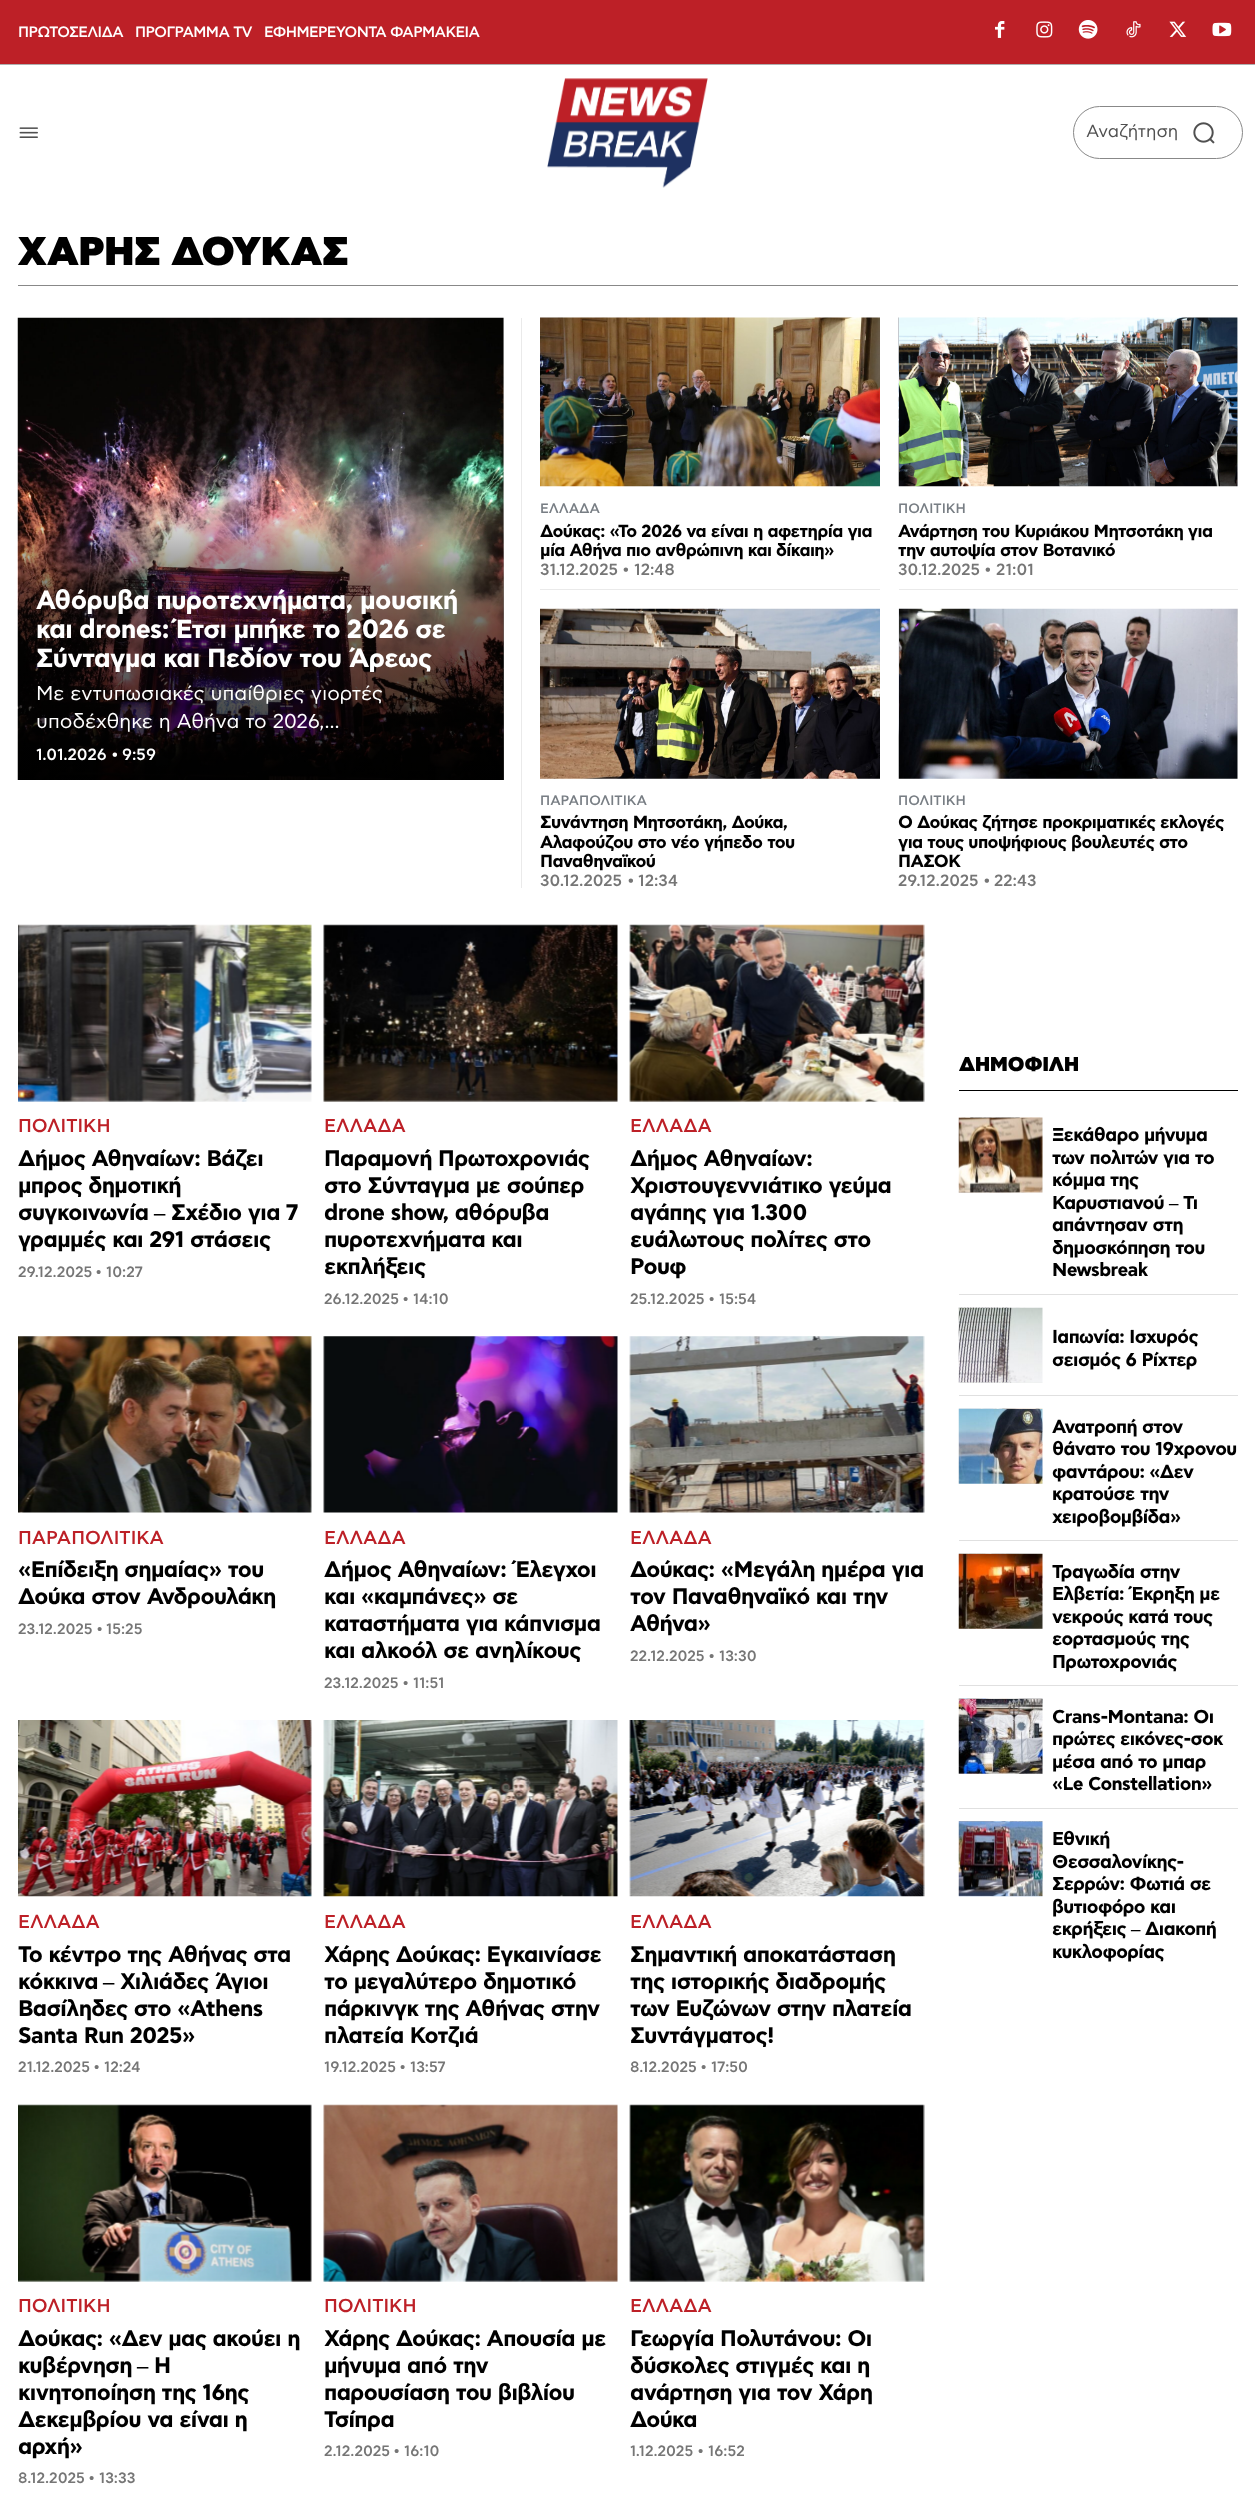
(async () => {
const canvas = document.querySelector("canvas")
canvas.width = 1255
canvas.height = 2496
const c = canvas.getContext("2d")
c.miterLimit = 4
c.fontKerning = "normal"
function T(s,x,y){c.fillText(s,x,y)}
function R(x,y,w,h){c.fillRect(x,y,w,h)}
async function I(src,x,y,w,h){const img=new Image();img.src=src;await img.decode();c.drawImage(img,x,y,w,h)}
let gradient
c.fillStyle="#fff"
R(0,0,1255,2496)
c.fillStyle="#bd2027"
R(0,0,1255,64)
c.fillStyle="#afafaf"
R(0,64,1255,1)
c.letterSpacing="-0.6px"
c.font="500 15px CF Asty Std"
c.fillStyle="#fff"
T("ΠΡΩΤΟΣΕΛΙΔΑ",18,37)
T("ΠΡΟΓΡΑΜΜΑ TV",135,37)
T("ΕΦΗΜΕΡΕΥΟΝΤΑ ΦΑΡΜΑΚΕΙΑ",264,37)
await I("1.png",995,21,10,17)
await I("2.png",1036,21,17,17)
await I("3.png",1078,20,20,19)
await I("4.png",1126,21,15,17)
await I("5.png",1169,21,18,16)
await I("6.png",1212,22,20,15)
await I("7.png",19,127,19,11)
await I("8.png",547,78,161,110)
c.beginPath()
c.roundRect(1073.5,106.5,169,52,26)
c.strokeStyle="#888"
c.stroke()
c.letterSpacing="0px"
c.font="17.5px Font"
c.fillStyle="#505050"
T("Αναζήτηση",1086,137)
await I("9.png",1193,122,22,22)
c.fillStyle="#888"
R(18,285,1220,1)
c.font="800 40px CF Asty Std"
c.fillStyle="#000"
T("ΧΑΡΗΣ ΔΟΥΚΑΣ",18,265)
c.fillStyle="#eaeaea"
R(521,318,1,570)
await I("10.png",17,317,487,463)
gradient = c.createLinearGradient(261,780,261,318)
gradient.addColorStop(0,"#000000cc")
gradient.addColorStop(.42,"#00000080")
gradient.addColorStop(.61,"#00000000")
gradient.addColorStop(1,"#00000000")
c.fillStyle = gradient
R(18,502,486,278)
c.letterSpacing="-0.6px"
c.font="bold 26.25px Font"
c.fillStyle="#fff"
T("Αθόρυβα πυροτεχνήματα, μουσική",36,609)
c.wordSpacing="-0.5px"
T("και drones: Έτσι μπήκε το 2026 σε",36,638)
c.wordSpacing="0px"
T("Σύνταγμα και Πεδίον του Άρεως",36,667)
c.letterSpacing="0px"
c.font="20px Font"
T("Με εντυπωσιακές υπαίθριες γιορτές",36,700)
T("υποδέχθηκε η Αθήνα το 2026,...",36,728)
c.font="500 16.25px CF Asty Std"
T("1.01.2026",36,760)
c.font="bold 16.25px Liberation Serif"
T("•",112,760)
c.font="500 16.25px CF Asty Std"
T("9:59",122,760)
c.fillStyle="#eaeaea"
R(540,589,340,1)
await I("11.png",540,317,340,170)
c.font="500 13.75px CF Asty Std"
c.fillStyle="#787e84"
T("ΕΛΛΑΔΑ",540,513)
c.letterSpacing="-0.6px"
c.font="bold 17.5px Font"
c.fillStyle="#000"
T("Δούκας: «Το 2026 να είναι η αφετηρία για",540,537)
T("μία Αθήνα πιο ανθρώπινη και δίκαιη»",540,556)
c.letterSpacing="0px"
c.font="500 16.25px CF Asty Std"
c.fillStyle="#767676"
T("31.12.2025",540,575)
c.font="bold 16.25px Liberation Serif"
T("•",623,575)
c.font="500 16.25px CF Asty Std"
T("12:48",634,575)
c.fillStyle="#eaeaea"
R(899,589,339,1)
await I("12.png",898,317,340,170)
c.font="500 13.75px CF Asty Std"
c.fillStyle="#787e84"
T("ΠΟΛΙΤΙΚΗ",898,513)
c.letterSpacing="-0.6px"
c.font="bold 17.5px Font"
c.fillStyle="#000"
T("Ανάρτηση του Κυριάκου Μητσοτάκη για",898,537)
T("την αυτοψία στον Βοτανικό",898,556)
c.letterSpacing="0px"
c.font="500 16.25px CF Asty Std"
c.fillStyle="#767676"
T("30.12.2025",898,575)
c.font="bold 16.25px Liberation Serif"
T("•",985,575)
c.font="500 16.25px CF Asty Std"
T("21:01",996,575)
await I("13.png",540,608,340,171)
c.font="500 13.75px CF Asty Std"
c.fillStyle="#787e84"
T("ΠΑΡΑΠΟΛΙΤΙΚΑ",540,805)
c.letterSpacing="-0.6px"
c.font="bold 17.5px Font"
c.fillStyle="#000"
T("Συνάντηση Μητσοτάκη, Δούκα,",540,828)
T("Αλαφούζου στο νέο γήπεδο του",540,848)
T("Παναθηναϊκού",540,867)
c.letterSpacing="0px"
c.font="500 16.25px CF Asty Std"
c.fillStyle="#767676"
T("30.12.2025",540,886)
c.font="bold 16.25px Liberation Serif"
T("•",628,886)
c.font="500 16.25px CF Asty Std"
T("12:34",638,886)
await I("14.png",898,608,340,171)
c.font="500 13.75px CF Asty Std"
c.fillStyle="#787e84"
T("ΠΟΛΙΤΙΚΗ",898,805)
c.letterSpacing="-0.6px"
c.font="bold 17.5px Font"
c.fillStyle="#000"
T("Ο Δούκας ζήτησε προκριματικές εκλογές",898,828)
T("για τους υποψήφιους βουλευτές στο",898,848)
T("ΠΑΣΟΚ",898,867)
c.letterSpacing="0px"
c.font="500 16.25px CF Asty Std"
c.fillStyle="#767676"
T("29.12.2025",898,886)
c.font="bold 16.25px Liberation Serif"
T("•",984,886)
c.font="500 16.25px CF Asty Std"
T("22:43",994,886)
await I("15.png",18,924,294,178)
c.font="500 18.75px CF Asty Std"
c.fillStyle="#bd2027"
T("ΠΟΛΙΤΙΚΗ",18,1132)
c.letterSpacing="-0.6px"
c.font="bold 22.5px Font"
c.fillStyle="#000"
T("Δήμος Αθηναίων: Βάζει",18,1166)
T("μπρος δημοτική",18,1193)
T("συγκοινωνία",18,1220)
c.font="bold 22.5px Liberation Serif"
T("–",154,1220)
c.font="bold 22.5px Font"
T("Σχέδιο για 7",171,1220)
T("γραμμές και 291 στάσεις",18,1247)
c.letterSpacing="0px"
c.font="500 15px CF Asty Std"
c.fillStyle="#767676"
T("29.12.2025",18,1277)
c.font="bold 15px Liberation Serif"
T("•",96,1277)
c.font="500 15px CF Asty Std"
T("10:27",106,1277)
await I("16.png",323,924,295,178)
c.font="500 18.75px CF Asty Std"
c.fillStyle="#bd2027"
T("ΕΛΛΑΔΑ",324,1132)
c.letterSpacing="-0.6px"
c.font="bold 22.5px Font"
c.fillStyle="#000"
T("Παραμονή Πρωτοχρονιάς",324,1166)
T("στο Σύνταγμα με σούπερ",324,1193)
T("drone show, αθόρυβα",324,1220)
T("πυροτεχνήματα και",324,1247)
T("εκπλήξεις",324,1274)
c.letterSpacing="0px"
c.font="500 15px CF Asty Std"
c.fillStyle="#767676"
T("26.12.2025",324,1304)
c.font="bold 15px Liberation Serif"
T("•",403,1304)
c.font="500 15px CF Asty Std"
T("14:10",413,1304)
await I("17.png",629,924,296,178)
c.font="500 18.75px CF Asty Std"
c.fillStyle="#bd2027"
T("ΕΛΛΑΔΑ",630,1132)
c.letterSpacing="-0.6px"
c.font="bold 22.5px Font"
c.fillStyle="#000"
T("Δήμος Αθηναίων:",630,1166)
T("Χριστουγεννιάτικο γεύμα",630,1193)
T("αγάπης για 1.300",630,1220)
T("ευάλωτους πολίτες στο",630,1247)
T("Ρουφ",630,1274)
c.letterSpacing="0px"
c.font="500 15px CF Asty Std"
c.fillStyle="#767676"
T("25.12.2025",630,1304)
c.font="bold 15px Liberation Serif"
T("•",709,1304)
c.font="500 15px CF Asty Std"
T("15:54",719,1304)
await I("18.png",18,1336,294,177)
c.font="500 18.75px CF Asty Std"
c.fillStyle="#bd2027"
T("ΠΑΡΑΠΟΛΙΤΙΚΑ",18,1544)
c.letterSpacing="-0.6px"
c.font="bold 22.5px Font"
c.fillStyle="#000"
T("«Επίδειξη σημαίας» του",18,1577)
T("Δούκα στον Ανδρουλάκη",18,1604)
c.letterSpacing="0px"
c.font="500 15px CF Asty Std"
c.fillStyle="#767676"
T("23.12.2025",18,1634)
c.font="bold 15px Liberation Serif"
T("•",97,1634)
c.font="500 15px CF Asty Std"
T("15:25",106,1634)
await I("19.png",323,1336,295,177)
c.font="500 18.75px CF Asty Std"
c.fillStyle="#bd2027"
T("ΕΛΛΑΔΑ",324,1544)
c.letterSpacing="-0.6px"
c.font="bold 22.5px Font"
c.fillStyle="#000"
T("Δήμος Αθηναίων: Έλεγχοι",324,1577)
T("και «καμπάνες» σε",324,1604)
T("καταστήματα για κάπνισμα",324,1631)
T("και αλκοόλ σε ανηλίκους",324,1658)
c.letterSpacing="0px"
c.font="500 15px CF Asty Std"
c.fillStyle="#767676"
T("23.12.2025",324,1688)
c.font="bold 15px Liberation Serif"
T("•",403,1688)
c.font="500 15px CF Asty Std"
T("11:51",413,1688)
await I("20.png",629,1336,296,177)
c.font="500 18.75px CF Asty Std"
c.fillStyle="#bd2027"
T("ΕΛΛΑΔΑ",630,1544)
c.letterSpacing="-0.6px"
c.font="bold 22.5px Font"
c.fillStyle="#000"
T("Δούκας: «Μεγάλη ημέρα για",630,1577)
T("τον Παναθηναϊκό και την",630,1604)
T("Αθήνα»",630,1631)
c.letterSpacing="0px"
c.font="500 15px CF Asty Std"
c.fillStyle="#767676"
T("22.12.2025",630,1661)
c.font="bold 15px Liberation Serif"
T("•",709,1661)
c.font="500 15px CF Asty Std"
T("13:30",719,1661)
await I("21.png",18,1720,294,177)
c.font="500 18.75px CF Asty Std"
c.fillStyle="#bd2027"
T("ΕΛΛΑΔΑ",18,1928)
c.letterSpacing="-0.6px"
c.font="bold 22.5px Font"
c.fillStyle="#000"
T("Το κέντρο της Αθήνας στα",18,1962)
T("κόκκινα",18,1989)
c.font="bold 22.5px Liberation Serif"
T("–",103,1989)
c.font="bold 22.5px Font"
T("Χιλιάδες Άγιοι",120,1989)
T("Βασίληδες στο «Athens",18,2016)
T("Santa Run 2025»",18,2043)
c.letterSpacing="0px"
c.font="500 15px CF Asty Std"
c.fillStyle="#767676"
T("21.12.2025",18,2072)
c.font="bold 15px Liberation Serif"
T("•",94,2072)
c.font="500 15px CF Asty Std"
T("12:24",104,2072)
await I("22.png",323,1720,295,177)
c.font="500 18.75px CF Asty Std"
c.fillStyle="#bd2027"
T("ΕΛΛΑΔΑ",324,1928)
c.letterSpacing="-0.6px"
c.font="bold 22.5px Font"
c.fillStyle="#000"
T("Χάρης Δούκας: Εγκαινίασε",324,1962)
T("το μεγαλύτερο δημοτικό",324,1989)
T("πάρκινγκ της Αθήνας στην",324,2016)
T("πλατεία Κοτζιά",324,2043)
c.letterSpacing="0px"
c.font="500 15px CF Asty Std"
c.fillStyle="#767676"
T("19.12.2025",324,2072)
c.font="bold 15px Liberation Serif"
T("•",400,2072)
c.font="500 15px CF Asty Std"
T("13:57",410,2072)
await I("23.png",629,1720,296,177)
c.font="500 18.75px CF Asty Std"
c.fillStyle="#bd2027"
T("ΕΛΛΑΔΑ",630,1928)
c.letterSpacing="-0.6px"
c.font="bold 22.5px Font"
c.fillStyle="#000"
T("Σημαντική αποκατάσταση",630,1962)
T("της ιστορικής διαδρομής",630,1989)
T("των Ευζώνων στην πλατεία",630,2016)
T("Συντάγματος!",630,2043)
c.letterSpacing="0px"
c.font="500 15px CF Asty Std"
c.fillStyle="#767676"
T("8.12.2025",630,2072)
c.font="bold 15px Liberation Serif"
T("•",701,2072)
c.font="500 15px CF Asty Std"
T("17:50",711,2072)
await I("24.png",18,2104,294,178)
c.font="500 18.75px CF Asty Std"
c.fillStyle="#bd2027"
T("ΠΟΛΙΤΙΚΗ",18,2312)
c.letterSpacing="-0.6px"
c.font="bold 22.5px Font"
c.fillStyle="#000"
T("Δούκας: «Δεν μας ακούει η",18,2346)
T("κυβέρνηση",18,2373)
c.font="bold 22.5px Liberation Serif"
T("–",137,2373)
c.font="bold 22.5px Font"
T("Η",154,2373)
T("κινητοποίηση της 16ης",18,2400)
T("Δεκεμβρίου να είναι η",18,2427)
T("αρχή»",18,2454)
c.letterSpacing="0px"
c.font="500 15px CF Asty Std"
c.fillStyle="#767676"
T("8.12.2025",18,2483)
c.font="bold 15px Liberation Serif"
T("•",89,2483)
c.font="500 15px CF Asty Std"
T("13:33",99,2483)
await I("25.png",323,2104,295,178)
c.font="500 18.75px CF Asty Std"
c.fillStyle="#bd2027"
T("ΠΟΛΙΤΙΚΗ",324,2312)
c.letterSpacing="-0.6px"
c.font="bold 22.5px Font"
c.fillStyle="#000"
T("Χάρης Δούκας: Απουσία με",324,2346)
T("μήνυμα από την",324,2373)
T("παρουσίαση του βιβλίου",324,2400)
T("Τσίπρα",324,2427)
c.letterSpacing="0px"
c.font="500 15px CF Asty Std"
c.fillStyle="#767676"
T("2.12.2025",324,2456)
c.font="bold 15px Liberation Serif"
T("•",394,2456)
c.font="500 15px CF Asty Std"
T("16:10",404,2456)
await I("26.png",629,2104,296,178)
c.font="500 18.75px CF Asty Std"
c.fillStyle="#bd2027"
T("ΕΛΛΑΔΑ",630,2312)
c.letterSpacing="-0.6px"
c.font="bold 22.5px Font"
c.fillStyle="#000"
T("Γεωργία Πολυτάνου: Οι",630,2346)
T("δύσκολες στιγμές και η",630,2373)
T("ανάρτηση για τον Χάρη",630,2400)
T("Δούκα",630,2427)
c.letterSpacing="0px"
c.font="500 15px CF Asty Std"
c.fillStyle="#767676"
T("1.12.2025",630,2456)
c.font="bold 15px Liberation Serif"
T("•",698,2456)
c.font="500 15px CF Asty Std"
T("16:52",708,2456)
c.font="800 20px CF Asty Std"
c.fillStyle="#000"
T("ΔΗΜΟΦΙΛΗ",959,1071)
R(959,1090,279,1)
c.fillStyle="#e0e0e0"
R(959,1294,279,1)
await I("27.png",958,1117,85,76)
c.letterSpacing="-0.6px"
c.font="bold 18.75px Font"
c.fillStyle="#000"
T("Ξεκάθαρο μήνυμα",1052,1141)
T("των πολιτών για το",1052,1164)
T("κόμμα της",1052,1186)
T("Καρυστιανού",1052,1209)
c.font="bold 18.75px Liberation Serif"
T("–",1169,1209)
c.font="bold 18.75px Font"
T("Τι",1183,1209)
T("απάντησαν στη",1052,1231)
T("δημοσκόπηση του",1052,1254)
T("Newsbreak",1052,1276)
c.fillStyle="#e0e0e0"
R(959,1395,279,1)
await I("28.png",958,1307,85,76)
c.fillStyle="#000"
T("Ιαπωνία: Ισχυρός",1052,1343)
T("σεισμός 6 Ρίχτερ",1052,1366)
c.fillStyle="#e0e0e0"
R(959,1540,279,1)
await I("29.png",958,1408,85,76)
c.fillStyle="#000"
T("Ανατροπή στον",1052,1433)
T("θάνατο του 19χρονου",1052,1455)
T("φαντάρου: «Δεν",1052,1478)
T("κρατούσε την",1052,1500)
T("χειροβομβίδα»",1052,1523)
c.fillStyle="#e0e0e0"
R(959,1685,279,1)
await I("30.png",958,1553,85,76)
c.fillStyle="#000"
T("Τραγωδία στην",1052,1578)
T("Ελβετία: Έκρηξη με",1052,1600)
T("νεκρούς κατά τους",1052,1623)
T("εορτασμούς της",1052,1645)
T("Πρωτοχρονιάς",1052,1668)
c.fillStyle="#e0e0e0"
R(959,1808,279,1)
await I("31.png",958,1698,85,76)
c.fillStyle="#000"
T("Crans-Montana: Οι",1052,1723)
T("πρώτες εικόνες-σοκ",1052,1745)
T("μέσα από το μπαρ",1052,1768)
T("«Le Constellation»",1052,1790)
await I("32.png",958,1821,85,76)
T("Εθνική",1052,1845)
T("Θεσσαλονίκης-",1052,1868)
T("Σερρών: Φωτιά σε",1052,1890)
T("βυτιοφόρο και",1052,1913)
T("εκρήξεις",1052,1935)
c.font="bold 18.75px Liberation Serif"
T("–",1131,1935)
c.font="bold 18.75px Font"
T("Διακοπή",1145,1935)
T("κυκλοφορίας",1052,1958)
})()
